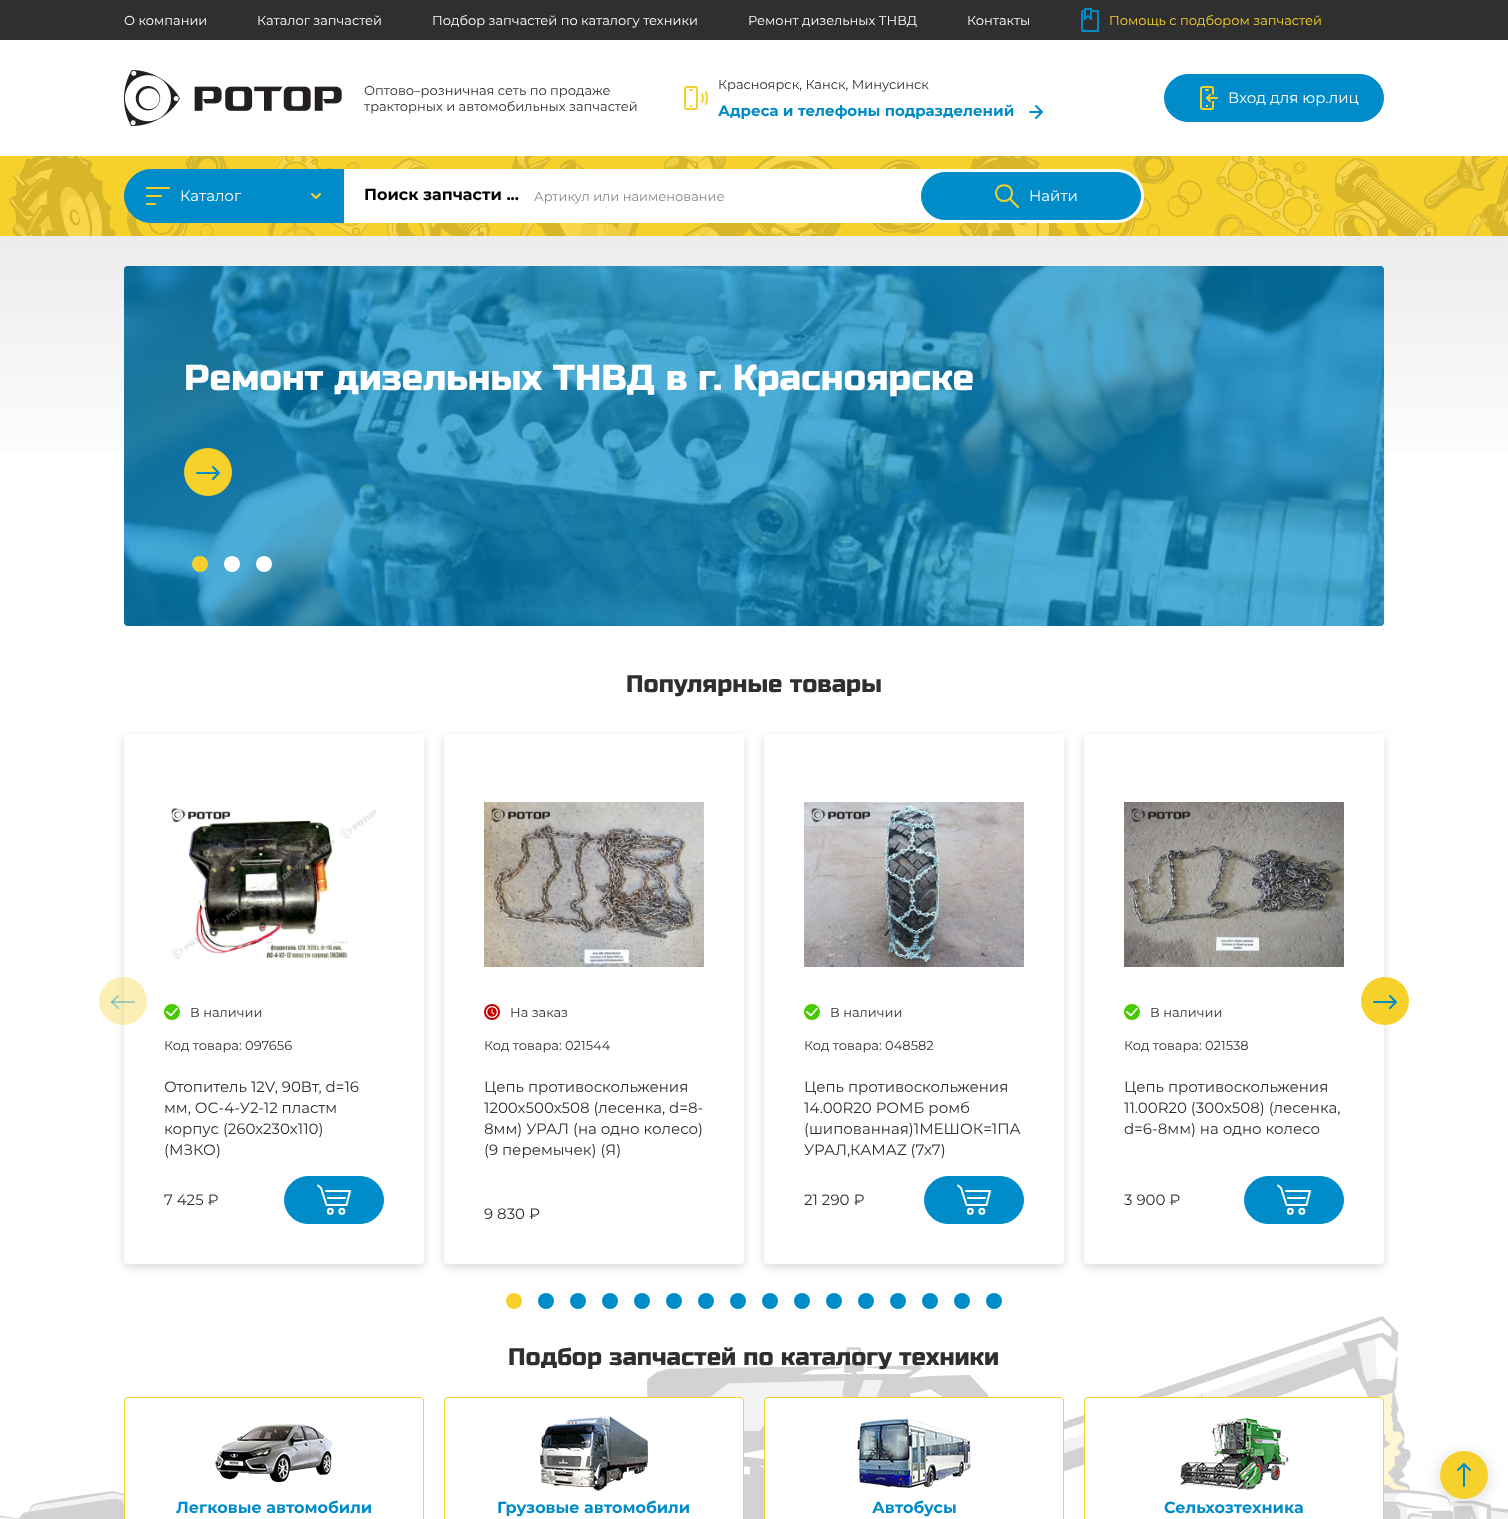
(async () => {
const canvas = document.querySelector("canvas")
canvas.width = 1508
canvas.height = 1519
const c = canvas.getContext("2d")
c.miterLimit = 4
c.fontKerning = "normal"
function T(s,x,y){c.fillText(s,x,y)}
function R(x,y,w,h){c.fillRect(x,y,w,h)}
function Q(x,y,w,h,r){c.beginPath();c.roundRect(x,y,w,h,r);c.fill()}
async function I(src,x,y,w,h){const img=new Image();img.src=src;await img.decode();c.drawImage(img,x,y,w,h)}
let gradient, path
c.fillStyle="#fff"
R(0,0,1508,1519)
c.fillStyle="#2f2f2f"
R(0,0,1508,40)
c.font="13px Montserrat"
c.fillStyle="#fff"
T("О компании",124,25)
T("Каталог запчастей",257,25)
T("Подбор запчастей по каталогу техники",432,25)
T("Ремонт дизельных ТНВД",748,25)
T("Контакты",967,25)
await I("1.png",1081,8,18,24)
c.fillStyle="#f7d12b"
T("Помощь с подбором запчастей",1109,25)
await I("2.png",124,70,218,56)
c.fillStyle="#2f2f2f"
T("Оптово–розничная сеть по продаже",364,95)
T("тракторных и автомобильных запчастей",364,111)
await I("3.png",684,86,24,24)
T("Красноярск, Канск, Минусинск",718,89)
c.font="bold 15px Montserrat"
c.fillStyle="#008cc9"
T("Адреса и телефоны подразделений",718,116)
path = new Path2D("M1036 106l6 6l-6 6m6-6h-12")
c.strokeStyle="#008cc9"
c.lineWidth=2
c.lineCap="round"
c.lineJoin="round"
c.stroke(path)
c.beginPath()
c.roundRect(1164.5,74.5,219,47,23.5)
c.fill()
c.lineWidth=1
c.lineJoin="miter"
c.stroke()
await I("4.png",1200,86,18,24)
c.font="15px Montserrat"
c.fillStyle="#fff"
T("Вход для юр.лиц",1228,103)
c.fillStyle="#f7d12b"
R(0,156,1508,80)
await I("5.png",9,156,1499,80)
c.fillStyle="#008cc9"
c.beginPath()
c.roundRect(124.5,169.5,219,53,[26.5,0,0,26.5])
c.fill()
c.stroke()
path = new Path2D("M147 188h22m-22 8h14m-14 8h8")
c.strokeStyle="#f7d12b"
c.lineWidth=2
c.lineJoin="round"
c.stroke(path)
c.fillStyle="#fff"
T("Каталог",180,201)
path = new Path2D("M320 194l-4 4l-4-4")
c.stroke(path)
c.beginPath()
c.roundRect(344,169,800,54,[0,27,27,0])
c.fill()
c.font="bold 16px Montserrat"
c.fillStyle="#000"
T("Поиск запчасти ...",364,200)
c.font="13px Montserrat"
c.fillStyle="#898989"
T("Артикул или наименование",534,201)
c.fillStyle="#008cc9"
c.beginPath()
c.roundRect(921.5,172.5,219,47,23.5)
c.fill()
c.strokeStyle="#008cc9"
c.lineWidth=1
c.lineJoin="miter"
c.stroke()
path = new Path2D("M1012 193c0-10.5-16-10.5-16 0c0 10.5 16 10.5 16 0zm-2.5 5.5l8.5 8.5")
c.strokeStyle="#f7d12b"
c.lineWidth=2
c.lineJoin="round"
c.stroke(path)
c.font="15px Montserrat"
c.fillStyle="#fff"
T("Найти",1029,201)
gradient = c.createLinearGradient(754,236,754,486)
gradient.addColorStop(0,"#ececec")
gradient.addColorStop(1,"#fff")
c.fillStyle = gradient
R(0,236,1508,217)
await I("6.png",124,266,1260,360)
c.fillStyle="#008cc9b3"
Q(124,266,1260,360,4)
c.font="36px Russo One"
c.fillStyle="#fff"
T("Ремонт дизельных ТНВД в г. Красноярске",184,390)
c.fillStyle="#f7d12b"
c.beginPath()
c.arc(208,472,24,0,7)
c.fill()
path = new Path2D("M213 467l6 6l-6 6m6-6h-22")
c.strokeStyle="#008cc9"
c.stroke(path)
c.beginPath()
c.arc(200,564,8,0,7)
c.fill()
c.fillStyle="#fff"
c.beginPath()
c.arc(232,564,8,0,7)
c.fill()
c.beginPath()
c.arc(264,564,8,0,7)
c.fill()
c.font="24px Russo One"
c.fillStyle="#2f2f2f"
T("Популярные товары",626,692)
c.fillStyle="#00000026"
c.filter="blur(5px)"
c.beginPath()
c.roundRect(124,737,300,530,4)
c.fill()
c.filter="none"
c.fillStyle="#fff"
Q(124,734,300,530,4)
c.fillStyle="#f7d12b59"
c.beginPath()
c.arc(123,1001,24,0,7)
c.fill()
path = new Path2D("M118 1008l-6-6l6-6")
c.strokeStyle="#008cc959"
c.stroke(path)
path = new Path2D("M112 1002h22")
c.stroke(path)
c.fillStyle="#00000026"
c.filter="blur(5px)"
c.beginPath()
c.roundRect(1084,737,300,530,4)
c.fill()
c.filter="none"
c.fillStyle="#fff"
Q(1084,734,300,530,4)
c.fillStyle="#f7d12b"
c.beginPath()
c.arc(1385,1001,24,0,7)
c.fill()
path = new Path2D("M1390 996l6 6l-6 6m6-6h-22")
c.strokeStyle="#008cc9"
c.stroke(path)
await I("7.png",171,808,206,152)
c.fillStyle="#47c900"
c.beginPath()
c.arc(172,1012,8,0,7)
c.fill()
path = new Path2D("M167 1012l4 3.5l6-7")
c.strokeStyle="#fff"
c.lineWidth=1.7
c.stroke(path)
c.font="13px Montserrat"
c.fillStyle="#2f2f2f"
T("В наличии",190,1017)
T("Код товара: 097656",164,1050)
c.font="15px Montserrat"
T("Отопитель 12V, 90Вт, d=16",164,1092)
T("мм, ОС-4-У2-12 пластм",164,1113)
T("корпус (260х230х110)",164,1134)
T("(МЗКО)",164,1155)
T("7 425 ₽",164,1205)
c.fillStyle="#008cc9"
c.beginPath()
c.roundRect(284.5,1176.5,99,47,23.5)
c.fill()
c.strokeStyle="#008cc9"
c.lineWidth=1
c.lineJoin="miter"
c.stroke()
path = new Path2D("M318 1185.5l3 2.5l5.5 17h20l3.5-14h-24m2 7h17")
c.strokeStyle="#fff"
c.lineWidth=2
c.lineJoin="round"
c.stroke(path)
c.beginPath()
c.arc(330.3,1211.2,2.5,0,7)
c.stroke()
c.beginPath()
c.arc(341.9,1211.2,2.5,0,7)
c.stroke()
c.fillStyle="#00000026"
c.filter="blur(5px)"
c.beginPath()
c.roundRect(444,737,300,530,4)
c.fill()
c.filter="none"
c.fillStyle="#fff"
Q(444,734,300,530,4)
await I("8.png",484,802,220,165)
c.fillStyle="#c90000"
c.beginPath()
c.arc(492,1012,8,0,7)
c.fill()
await I("9.png",486,1006,12,12)
c.font="13px Montserrat"
c.fillStyle="#2f2f2f"
T("На заказ",510,1017)
T("Код товара: 021544",484,1050)
c.font="15px Montserrat"
T("Цепь противоскольжения",484,1092)
T("1200х500х508 (лесенка, d=8-",484,1113)
T("8мм) УРАЛ (на одно колесо)",484,1134)
T("(9 перемычек) (Я)",484,1155)
T("9 830 ₽",484,1219)
c.fillStyle="#00000026"
c.filter="blur(5px)"
c.beginPath()
c.roundRect(764,737,300,530,4)
c.fill()
c.filter="none"
c.fillStyle="#fff"
Q(764,734,300,530,4)
await I("10.png",804,802,220,165)
c.fillStyle="#47c900"
c.beginPath()
c.arc(812,1012,8,0,7)
c.fill()
path = new Path2D("M807 1012l4 3.5l6-7")
c.lineWidth=1.7
c.stroke(path)
c.font="13px Montserrat"
c.fillStyle="#2f2f2f"
T("В наличии",830,1017)
T("Код товара: 048582",804,1050)
c.font="15px Montserrat"
T("Цепь противоскольжения",804,1092)
T("14.00R20 РОМБ ромб",804,1113)
T("(шипованная)1МЕШОК=1ПА",804,1134)
T("УРАЛ,КАМАZ (7х7)",804,1155)
T("21 290 ₽",804,1205)
c.fillStyle="#008cc9"
c.beginPath()
c.roundRect(924.5,1176.5,99,47,23.5)
c.fill()
c.strokeStyle="#008cc9"
c.lineWidth=1
c.lineJoin="miter"
c.stroke()
path = new Path2D("M958 1185.5l3 2.5l5.5 17h20l3.5-14h-24m2 7h17")
c.strokeStyle="#fff"
c.lineWidth=2
c.lineJoin="round"
c.stroke(path)
c.beginPath()
c.arc(970.3,1211.2,2.5,0,7)
c.stroke()
c.beginPath()
c.arc(981.9,1211.2,2.5,0,7)
c.stroke()
await I("11.png",1124,802,220,165)
c.fillStyle="#47c900"
c.beginPath()
c.arc(1132,1012,8,0,7)
c.fill()
path = new Path2D("M1127 1012l4 3.5l6-7")
c.lineWidth=1.7
c.stroke(path)
c.font="13px Montserrat"
c.fillStyle="#2f2f2f"
T("В наличии",1150,1017)
T("Код товара: 021538",1124,1050)
c.font="15px Montserrat"
T("Цепь противоскольжения",1124,1092)
T("11.00R20 (300х508) (лесенка,",1124,1113)
T("d=6-8мм) на одно колесо",1124,1134)
T("3 900 ₽",1124,1205)
c.fillStyle="#008cc9"
c.beginPath()
c.roundRect(1244.5,1176.5,99,47,23.5)
c.fill()
c.strokeStyle="#008cc9"
c.lineWidth=1
c.lineJoin="miter"
c.stroke()
path = new Path2D("M1278 1185.5l3 2.5l5.5 17h20l3.5-14h-24m2 7h17")
c.strokeStyle="#fff"
c.lineWidth=2
c.lineJoin="round"
c.stroke(path)
c.beginPath()
c.arc(1290.3,1211.2,2.5,0,7)
c.stroke()
c.beginPath()
c.arc(1301.9,1211.2,2.5,0,7)
c.stroke()
c.fillStyle="#f7d12b"
c.beginPath()
c.arc(514,1301,8,0,7)
c.fill()
c.fillStyle="#008cc9"
c.beginPath()
c.arc(546,1301,8,0,7)
c.fill()
c.beginPath()
c.arc(578,1301,8,0,7)
c.fill()
c.beginPath()
c.arc(610,1301,8,0,7)
c.fill()
c.beginPath()
c.arc(642,1301,8,0,7)
c.fill()
c.beginPath()
c.arc(674,1301,8,0,7)
c.fill()
c.beginPath()
c.arc(706,1301,8,0,7)
c.fill()
c.beginPath()
c.arc(738,1301,8,0,7)
c.fill()
c.beginPath()
c.arc(770,1301,8,0,7)
c.fill()
c.beginPath()
c.arc(802,1301,8,0,7)
c.fill()
c.beginPath()
c.arc(834,1301,8,0,7)
c.fill()
c.beginPath()
c.arc(866,1301,8,0,7)
c.fill()
c.beginPath()
c.arc(898,1301,8,0,7)
c.fill()
c.beginPath()
c.arc(930,1301,8,0,7)
c.fill()
c.beginPath()
c.arc(962,1301,8,0,7)
c.fill()
c.beginPath()
c.arc(994,1301,8,0,7)
c.fill()
await I("16.png",0,1316,1508,203)
c.font="24px Russo One"
c.fillStyle="#2f2f2f"
T("Подбор запчастей по каталогу техники",508,1365)
c.fillStyle="#fff"
c.beginPath()
c.roundRect(124.5,1397.5,299,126,3.5)
c.fill()
c.strokeStyle="#f7d12b"
c.lineWidth=1
c.lineJoin="miter"
c.stroke()
await I("12.png",215,1424,118,58)
c.font="bold 16px Montserrat"
c.fillStyle="#008cc9"
T("Легковые автомобили",176,1513)
c.fillStyle="#fff"
c.beginPath()
c.roundRect(444.5,1397.5,299,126,3.5)
c.fill()
c.stroke()
await I("13.png",540,1415,108,76)
c.fillStyle="#008cc9"
T("Грузовые автомобили",497,1513)
c.fillStyle="#fff"
c.beginPath()
c.roundRect(764.5,1397.5,299,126,3.5)
c.fill()
c.stroke()
await I("14.png",857,1417,114,71)
c.fillStyle="#008cc9"
T("Автобусы",872,1513)
c.fillStyle="#fff"
c.beginPath()
c.roundRect(1084.5,1397.5,299,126,3.5)
c.fill()
c.stroke()
await I("15.png",1180,1418,109,72)
c.fillStyle="#008cc9"
T("Сельхозтехника",1164,1513)
c.fillStyle="#00000026"
c.filter="blur(8px)"
c.beginPath()
c.roundRect(1440,1454,48,48,24)
c.fill()
c.filter="none"
c.fillStyle="#f7d12b"
c.beginPath()
c.arc(1464,1475,24,0,7)
c.fill()
path = new Path2D("M1458 1470l6-6l6 6m-6-6v22")
c.strokeStyle="#008cc9"
c.lineWidth=2
c.lineJoin="round"
c.stroke(path)
})()
